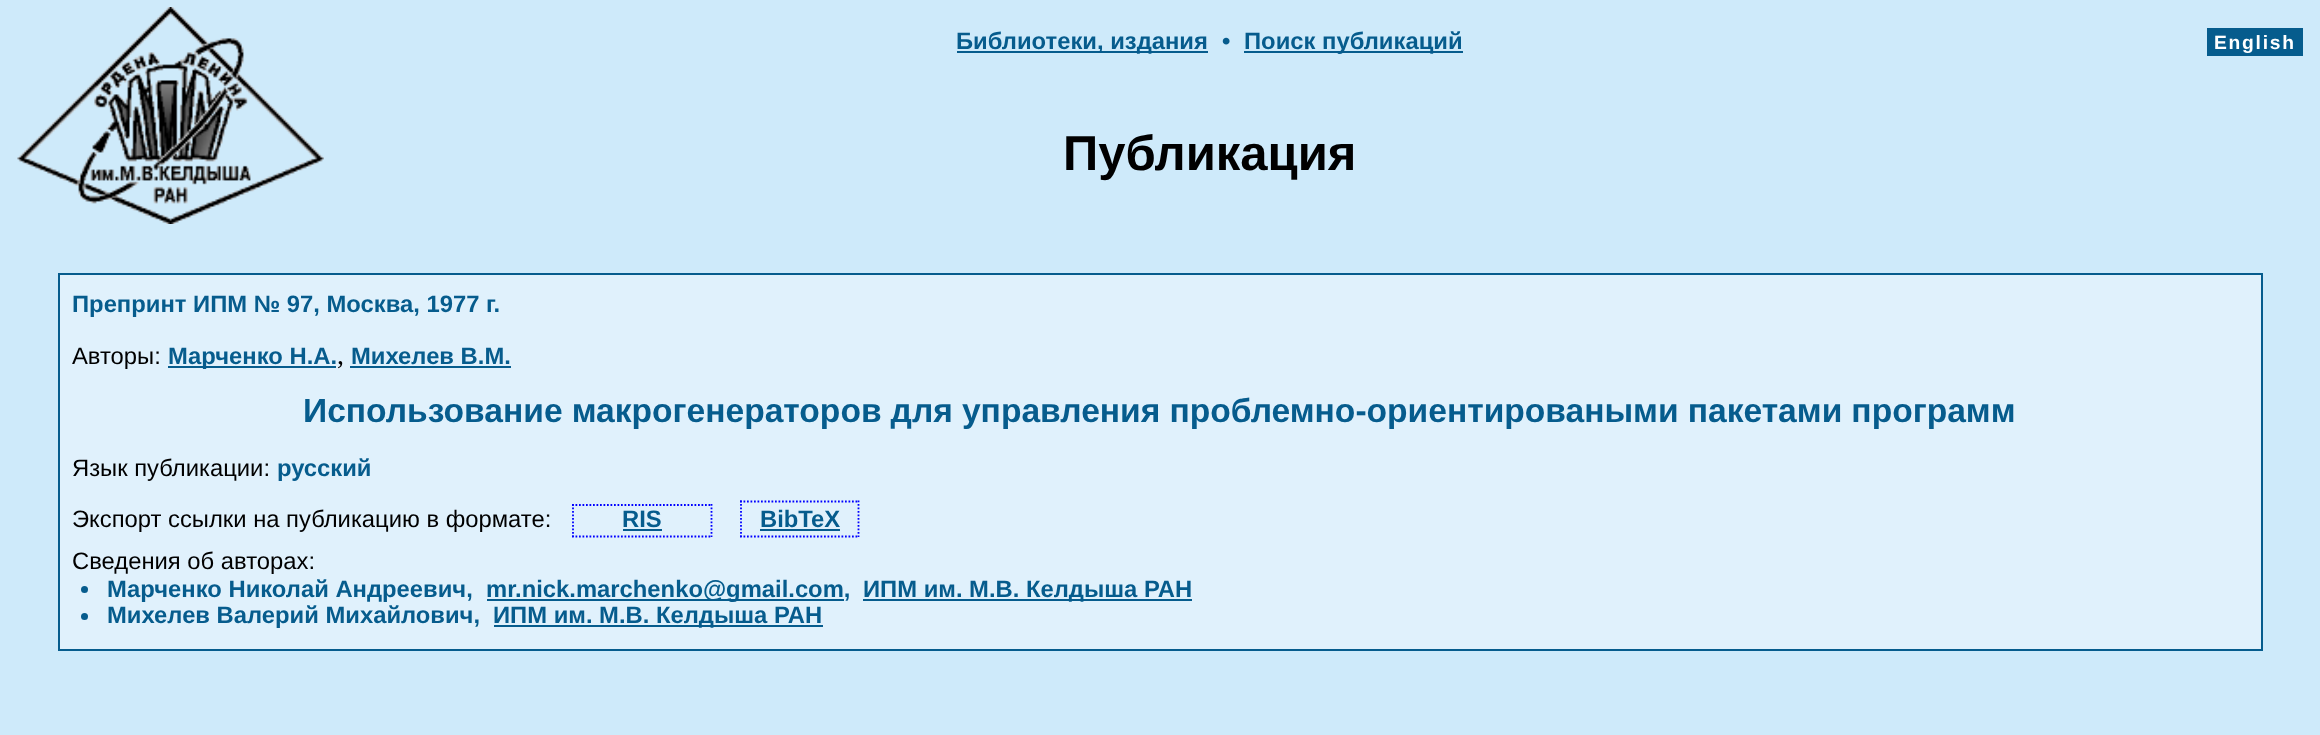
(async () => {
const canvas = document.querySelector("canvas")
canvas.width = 2320
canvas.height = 735
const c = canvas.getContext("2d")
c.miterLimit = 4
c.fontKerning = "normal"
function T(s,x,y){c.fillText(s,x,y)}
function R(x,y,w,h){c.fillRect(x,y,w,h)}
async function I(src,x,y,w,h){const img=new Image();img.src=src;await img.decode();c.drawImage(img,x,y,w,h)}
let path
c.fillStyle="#ceeafa"
R(0,0,2320,735)
await I("1.png",17,7,307,217)
c.fillStyle="#065c8d"
R(957,51,251,2)
c.font="bold 23.8px Liberation Sans"
T("Библиотеки, издания",956,49)
T("•",1222,49)
R(1244,51,219,2)
T("Поиск публикаций",1244,49)
R(2207,28,96,28)
c.letterSpacing="1.75px"
c.font="bold 19.25px Liberation Sans"
c.fillStyle="#fff"
T("English",2214,49)
c.letterSpacing="0px"
c.font="bold 49px Liberation Sans"
c.fillStyle="#000"
T("Публикация",1063,170)
c.fillStyle="#065c8d"
R(58,273,2205,378)
c.fillStyle="#e0f1fc"
R(60,275,2201,374)
c.font="bold 23.8px Liberation Sans"
c.fillStyle="#065c8d"
T("Препринт ИПМ № 97, Москва, 1977 г.",72,312)
c.font="23.8px Liberation Sans"
c.fillStyle="#000"
T("Авторы:",72,364)
c.fillStyle="#065c8d"
R(168,366,168,2)
c.font="bold 23.8px Liberation Sans"
T("Марченко Н.А.",168,364)
c.font="28px Liberation Serif"
c.fillStyle="#000"
T(",",337,364)
c.font="bold 23.8px Liberation Sans"
c.fillStyle="#065c8d"
T("Михелев В.М.",351,364)
R(350,366,161,2)
c.wordSpacing="-0.25px"
c.font="bold 33.6px Liberation Sans"
T("Использование макрогенераторов для управления проблемно-ориентироваными пакетами программ",303,422)
c.wordSpacing="0px"
c.font="23.8px Liberation Sans"
c.fillStyle="#000"
T("Язык публикации:",72,476)
c.font="bold 23.8px Liberation Sans"
c.fillStyle="#065c8d"
T("русский",277,476)
c.font="23.8px Liberation Sans"
c.fillStyle="#000"
T("Экспорт ссылки на публикацию в формате:",72,527)
c.font="bold 23.8px Liberation Sans"
c.fillStyle="#065c8d"
T("RIS",622,527)
path = new Path2D("M572 505h140")
c.strokeStyle="#00f"
c.lineWidth=1.8
c.setLineDash([1.75,1.75])
c.stroke(path)
path = new Path2D("M711.5 504v33")
c.stroke(path)
path = new Path2D("M572 536.5h140")
c.stroke(path)
path = new Path2D("M573 504v33")
c.stroke(path)
R(623,529,39,2)
T("BibTeX",760,527)
path = new Path2D("M740 501.5h119")
c.stroke(path)
path = new Path2D("M858.5 500.5v36.5")
c.stroke(path)
path = new Path2D("M740 536.5h119")
c.stroke(path)
path = new Path2D("M741 500.5v36.5")
c.stroke(path)
R(760,529,80,2)
c.font="23.8px Liberation Sans"
c.fillStyle="#000"
T("Сведения об авторах:",72,569)
c.fillStyle="#065c8d"
c.beginPath()
c.arc(84.5,589.5,3.5,0,7)
c.fill()
c.font="bold 23.8px Liberation Sans"
T("Марченко Николай Андреевич,",107,597)
R(487,599,357,2)
T("mr.nick.marchenko@gmail.com,",486,597)
R(863,599,329,2)
T("ИПМ им. М.В. Келдыша РАН",863,597)
c.beginPath()
c.arc(84.5,616.5,3.5,0,7)
c.fill()
T("Михелев Валерий Михайлович,",107,623)
R(494,625,329,2)
T("ИПМ им. М.В. Келдыша РАН",493,623)
})()
